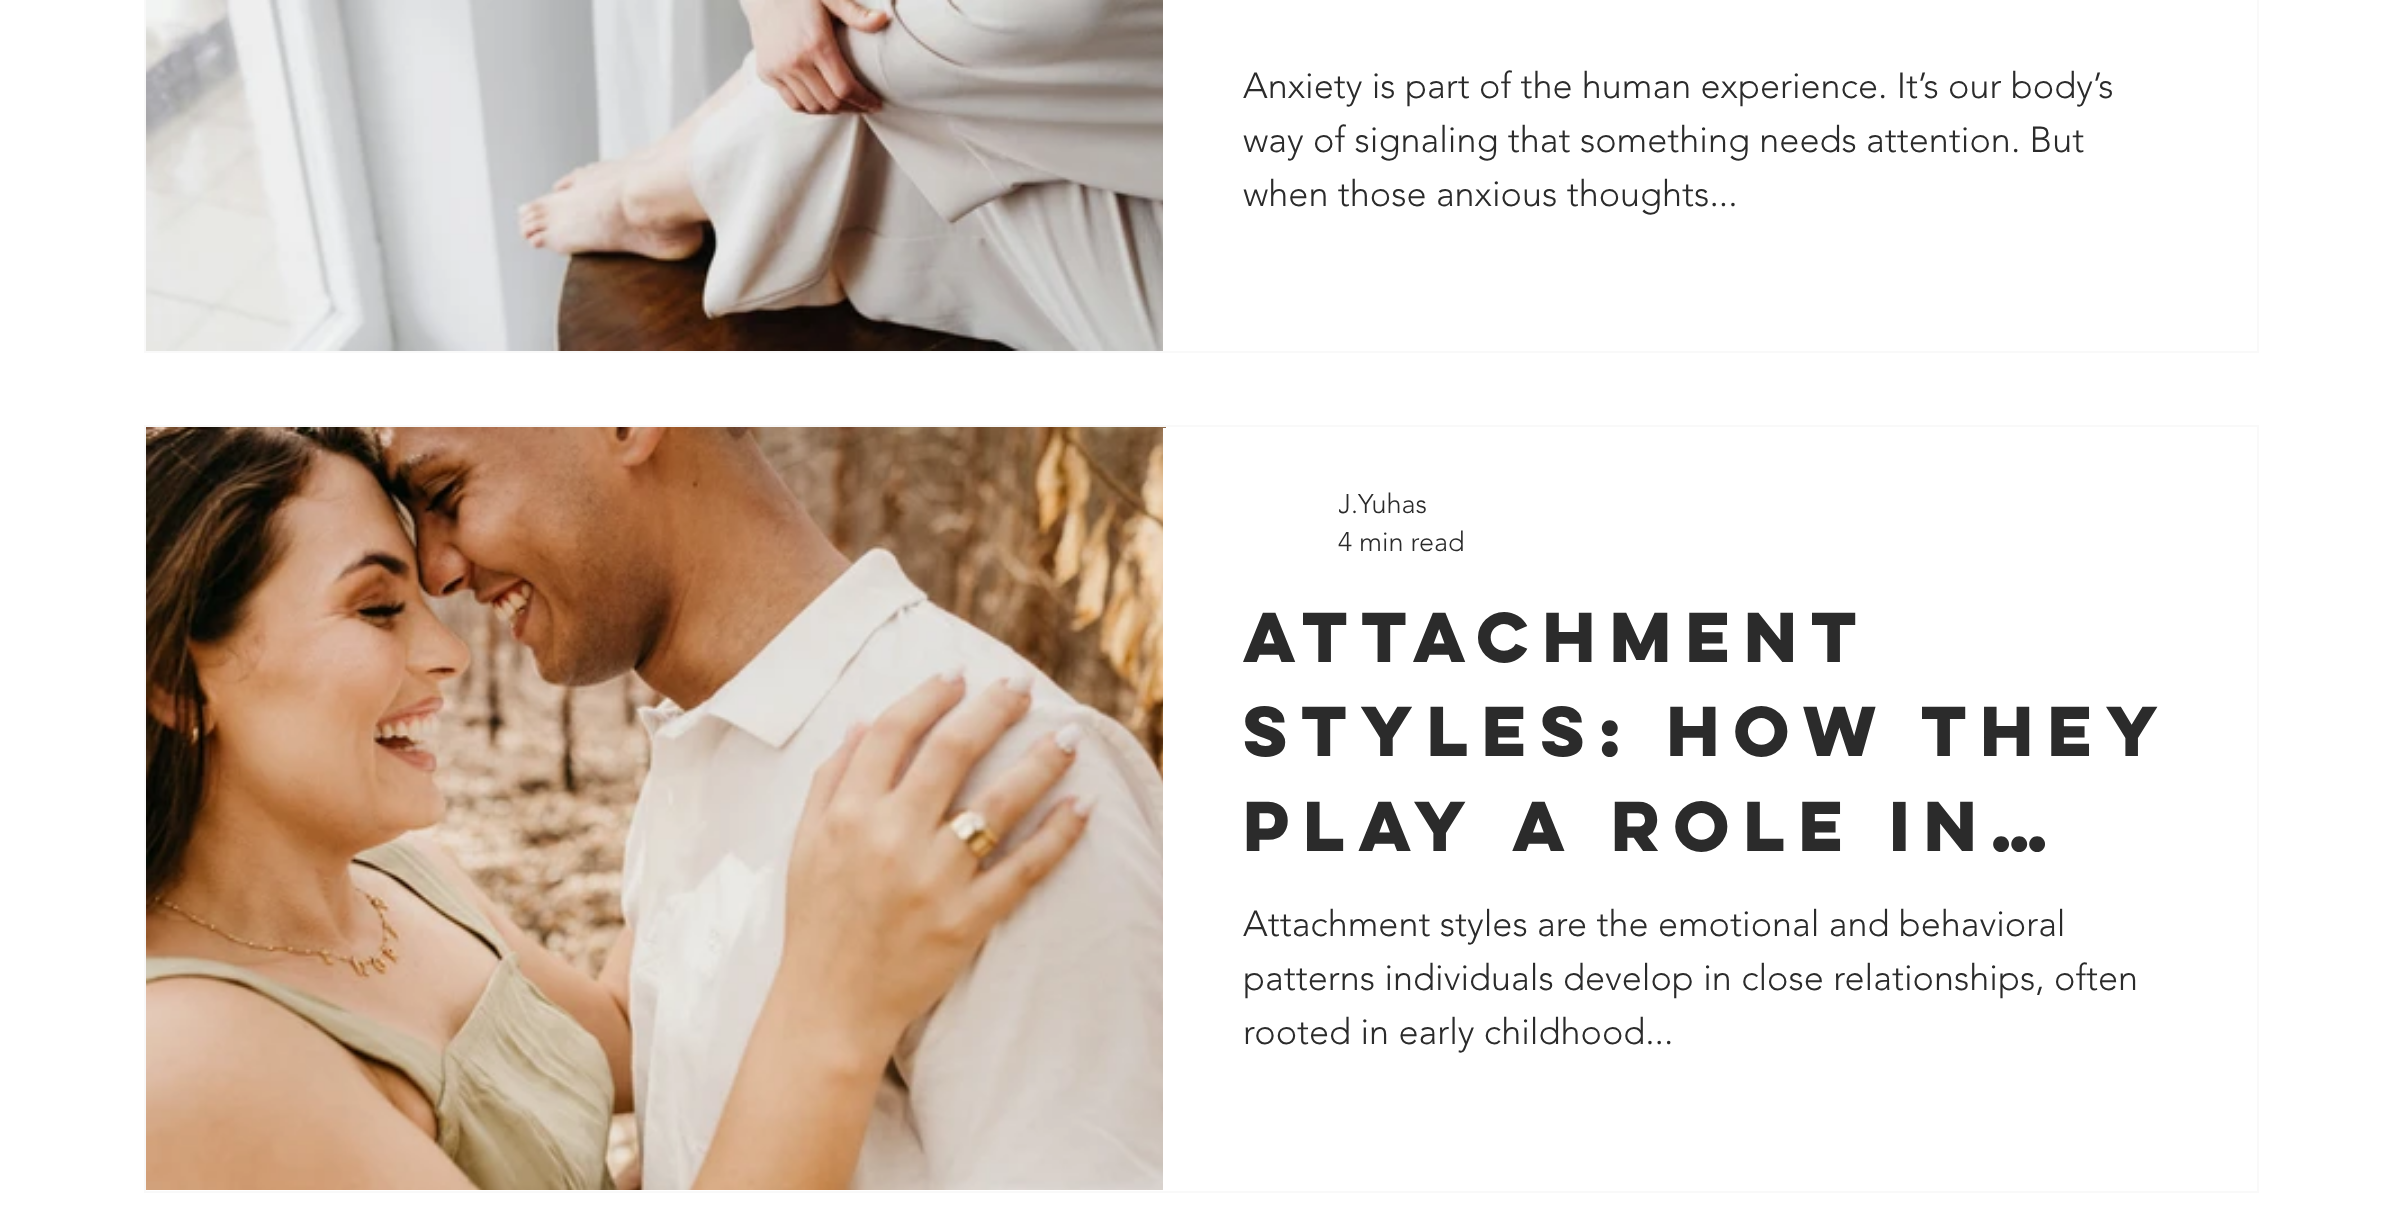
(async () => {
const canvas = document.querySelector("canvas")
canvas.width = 2400
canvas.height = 1219
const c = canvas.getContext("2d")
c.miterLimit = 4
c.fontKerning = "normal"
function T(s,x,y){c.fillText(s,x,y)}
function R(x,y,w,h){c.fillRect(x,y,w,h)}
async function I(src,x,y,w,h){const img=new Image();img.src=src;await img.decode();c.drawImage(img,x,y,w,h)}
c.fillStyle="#fff"
R(0,0,2400,1219)
c.strokeStyle="#f9f9f9"
c.lineWidth=2
c.strokeRect(145,-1,2113,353)
await I("1.png",146,0,1017,351)
c.font="300 36px 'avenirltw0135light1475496'"
c.fillStyle="#2b2b2b"
T("Anxiety is part of the human experience. It’s our body’s",1243,98)
T("way of signaling that something needs attention. But",1243,152)
T("when those anxious thoughts...",1243,206)
c.strokeRect(145,426,2113,766)
await I("2.png",146,427,1020,763)
c.fillStyle="#fff"
R(1163,428,3,762)
c.save()
c.beginPath()
c.rect(1339,488,88,32)
c.clip()
c.font="300 27px 'avenirltw0135light1475496'"
c.fillStyle="#2b2b2b"
T("J.Yuhas",1338,513)
c.restore()
c.font="300 27px 'avenirltw0135light1475496'"
c.fillStyle="#2b2b2b"
T("4 min read",1338,551)
c.font="bold 63px 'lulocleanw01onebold'"
T("Attachment",1243,662)
c.wordSpacing="-1px"
T("Styles: How They",1243,756)
c.wordSpacing="0px"
T("Play A Role In…",1243,851)
c.font="300 36px 'avenirltw0135light1475496'"
T("Attachment styles are the emotional and behavioral",1243,936)
T("patterns individuals develop in close relationships, often",1243,990)
T("rooted in early childhood...",1243,1044)
})()
